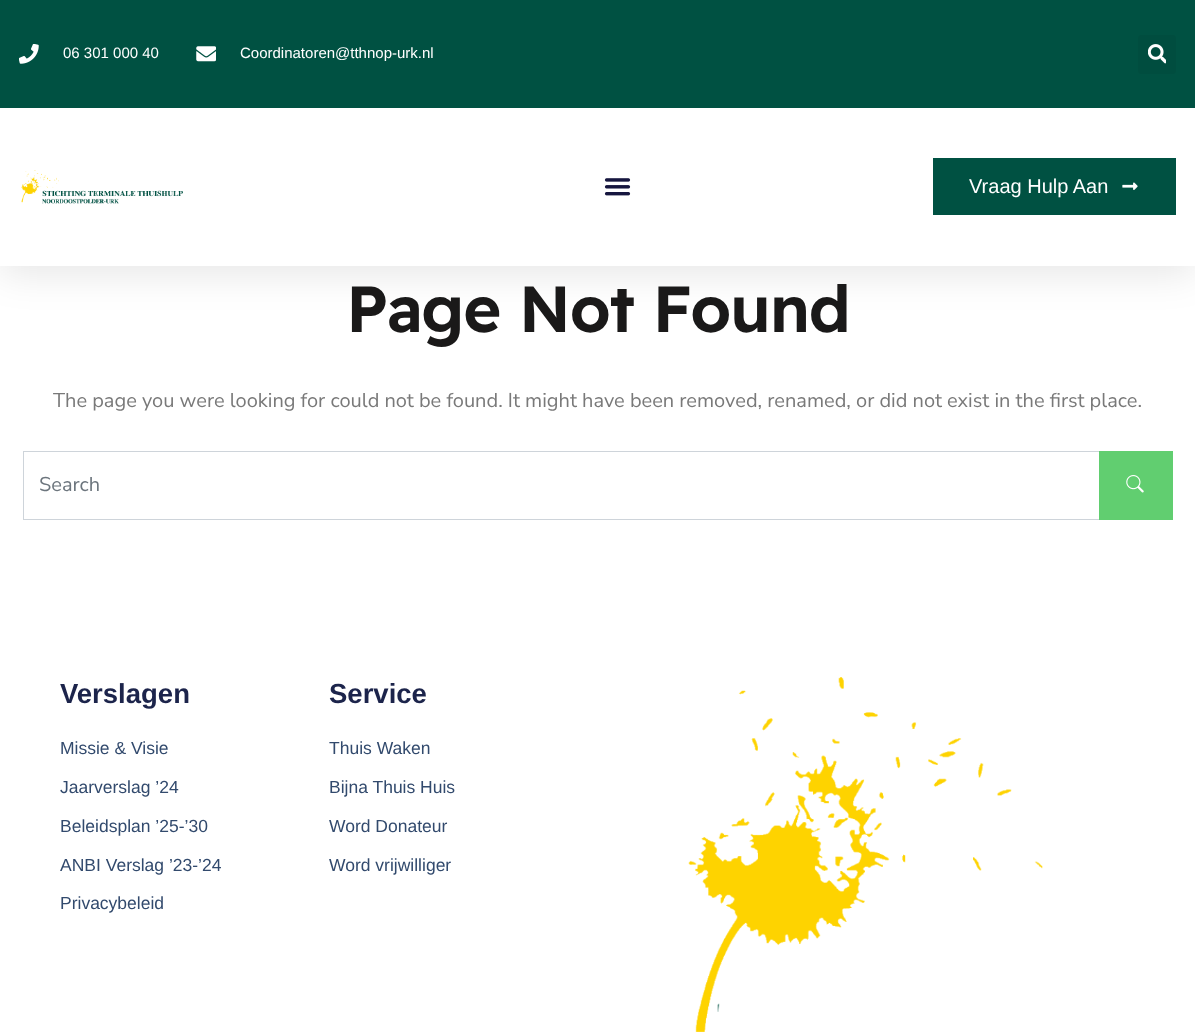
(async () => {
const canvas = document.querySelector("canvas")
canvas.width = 1195
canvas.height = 1033
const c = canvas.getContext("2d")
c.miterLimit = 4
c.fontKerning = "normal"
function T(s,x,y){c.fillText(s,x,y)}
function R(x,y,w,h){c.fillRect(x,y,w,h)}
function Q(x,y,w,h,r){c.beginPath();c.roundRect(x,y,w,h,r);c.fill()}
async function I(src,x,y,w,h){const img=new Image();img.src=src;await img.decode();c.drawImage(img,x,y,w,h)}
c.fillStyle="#fff"
R(0,0,1195,1033)
c.fillStyle="#0000001a"
c.filter="blur(19px)"
c.beginPath()
c.rect(0,6,1195,267)
c.fill()
c.filter="none"
c.fillStyle="#005142"
R(0,0,1195,108)
await I("1.png",19,44,20,20)
c.font="15px Liberation Sans"
c.fillStyle="#fff"
T("06 301 000 40",63,58)
await I("2.png",196,46,20,16)
T("Coordinatoren@tthnop-urk.nl",240,58)
c.fillStyle="#004d3f"
Q(1138,35,38,39,4)
await I("3.png",1148,44,18,20)
c.fillStyle="#fff"
R(0,108,1195,158)
await I("4.png",21,170,162,34)
await I("5.png",604,178,27,18)
c.fillStyle="#005142"
R(933,158,243,57)
c.font="20px Liberation Sans"
c.fillStyle="#fff"
T("Vraag Hulp Aan",969,193)
await I("6.png",1122,182,16,8)
c.letterSpacing="-1.25px"
c.font="600 65px Readex Pro"
c.fillStyle="#1a1919"
T("Page Not Found",346,332)
c.letterSpacing="0px"
c.font="20px Nunito Sans"
c.fillStyle="#797979"
T("The page you were looking for could not be found. It might have been removed, renamed, or did not exist in the first place.",53,407)
c.strokeStyle="#ced4da"
c.strokeRect(23.5,451.5,1076,68)
c.fillStyle="#6c757d"
T("Search",39,491)
c.fillStyle="#61ce70"
R(1099,451,74,69)
await I("7.png",1126,475,18,18)
c.font="bold 27.5px Liberation Sans"
c.fillStyle="#1c244b"
T("Verslagen",60,703)
c.font="17.5px Liberation Sans"
c.fillStyle="#324a6d"
T("Missie & Visie",60,754)
T("Jaarverslag ’24",60,793)
T("Beleidsplan ’25-’30",60,832)
T("ANBI Verslag ’23-’24",60,871)
T("Privacybeleid",60,909)
c.font="bold 27.5px Liberation Sans"
c.fillStyle="#1c244b"
T("Service",329,703)
c.font="17.5px Liberation Sans"
c.fillStyle="#324a6d"
T("Thuis Waken",329,754)
T("Bijna Thuis Huis",329,793)
T("Word Donateur",329,832)
T("Word vrijwilliger",329,871)
await I("8.png",688,677,355,355)
})()
